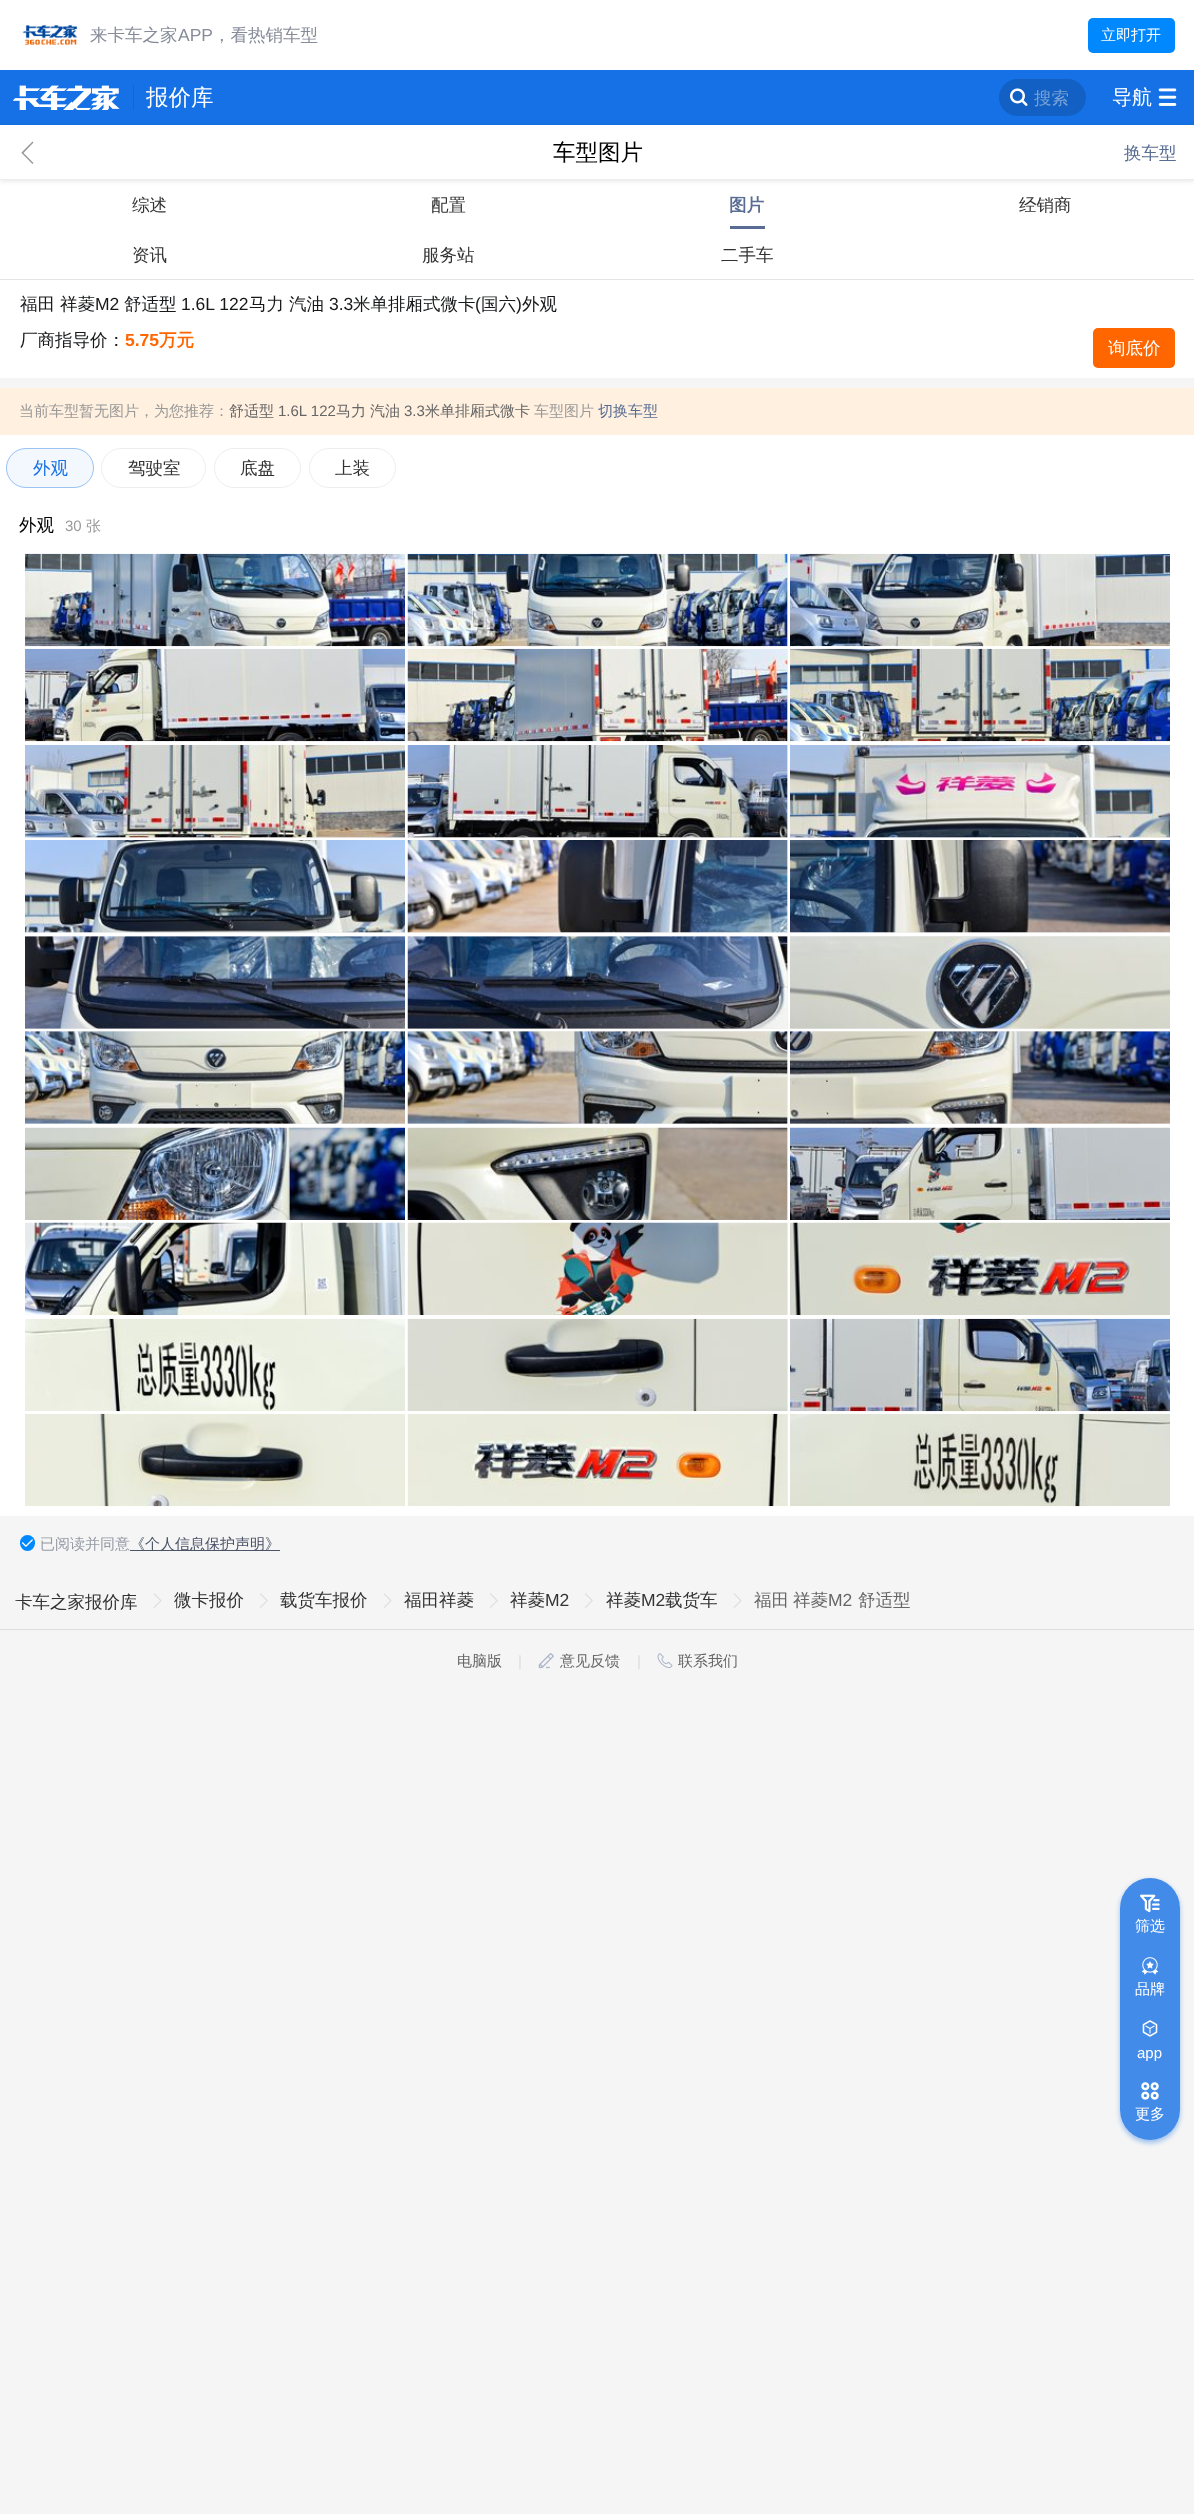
(async () => {
const canvas = document.querySelector("canvas")
canvas.width = 1194
canvas.height = 2514
const c = canvas.getContext("2d")
c.miterLimit = 4
c.fontKerning = "normal"
function T(s,x,y){c.fillText(s,x,y)}
function R(x,y,w,h){c.fillRect(x,y,w,h)}
function Q(x,y,w,h,r){c.beginPath();c.roundRect(x,y,w,h,r);c.fill()}
async function I(src,x,y,w,h){const img=new Image();img.src=src;await img.decode();c.drawImage(img,x,y,w,h)}
let gradient, path
c.fillStyle="#f5f5f5"
R(0,0,1194,2514)
c.fillStyle="#fff"
R(0,0,1194,70)
await I("1.png",22,25,56,20)
c.font="500 17.5px WenQuanYi Zen Hei"
c.fillStyle="#868c99"
T("来卡车之家",90,41)
c.font="17.5px Liberation Sans"
T("APP",178,41)
c.font="500 17.5px WenQuanYi Zen Hei"
T("，看热销车型",213,41)
c.fillStyle="#0089ff"
Q(1088,18,87,35,5)
c.font="500 15px WenQuanYi Zen Hei"
c.fillStyle="#fff"
T("立即打开",1101,40)
c.fillStyle="#1571e5"
R(0,70,1194,55)
await I("2.png",13,85,107,25)
c.fillStyle="#1366ce"
R(133,85,1,25)
c.font="500 22.5px WenQuanYi Zen Hei"
c.fillStyle="#fff"
T("报价库",146,105)
c.fillStyle="#1260c3"
Q(999,79,87,37,18.5)
await I("3.png",1010,88,18,18)
c.font="500 17.5px WenQuanYi Zen Hei"
c.fillStyle="#78a2d6"
T("搜索",1034,104)
c.font="500 20px WenQuanYi Zen Hei"
c.fillStyle="#fff"
T("导航",1112,104)
await I("4.png",1158,88,19,18)
R(0,180,1194,99)
c.fillStyle="#0000001a"
c.filter="blur(2.5px)"
c.beginPath()
c.rect(0,126,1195,55)
c.fill()
c.filter="none"
c.fillStyle="#fff"
R(0,125,1194,54)
c.fillStyle="#eee"
R(0,179,1194,1)
c.fillStyle="#999"
path = new Path2D("M21.5 153l11 11l1-1l-10-10l10-10.5l-1-1l-11 11z")
c.fill(path)
c.font="500 22.5px WenQuanYi Zen Hei"
c.fillStyle="#000"
T("车型图片",553,160)
c.font="500 17.5px WenQuanYi Zen Hei"
c.fillStyle="#586c94"
T("换车型",1124,159)
c.fillStyle="#e4e5e6"
R(0,279,1194,1)
c.fillStyle="#333"
T("综述",132,211)
T("配置",431,211)
c.font="bold 17.5px WenQuanYi Zen Hei"
c.fillStyle="#586c94"
T("图片",729,211)
R(730,226,35,3)
c.font="500 17.5px WenQuanYi Zen Hei"
c.fillStyle="#333"
T("经销商",1019,211)
T("资讯",132,261)
T("服务站",422,261)
T("二手车",721,261)
c.fillStyle="#fff"
R(0,280,1194,1236)
c.fillStyle="#f5f5f5"
R(0,378,1194,10)
c.fillStyle="#17181a"
T("福田",20,310)
T("祥菱",60,310)
c.font="17.5px Liberation Sans"
T("M2",95,310)
c.font="500 17.5px WenQuanYi Zen Hei"
T("舒适型",124,310)
c.font="17.5px Liberation Sans"
T("1.6L 122",181,310)
c.font="500 17.5px WenQuanYi Zen Hei"
T("马力",249,310)
T("汽油",289,310)
c.font="17.5px Liberation Sans"
T("3.3",329,310)
c.font="500 17.5px WenQuanYi Zen Hei"
T("米单排厢式微卡",353,310)
c.font="17.5px Liberation Sans"
T("(",475,310)
c.font="500 17.5px WenQuanYi Zen Hei"
T("国六",481,310)
c.font="17.5px Liberation Sans"
T(")",516,310)
c.font="500 17.5px WenQuanYi Zen Hei"
T("外观",522,310)
T("厂商指导价：",20,346)
c.font="bold 17.5px Liberation Sans"
c.fillStyle="#f60"
T("5.75",125,346)
c.font="bold 17.5px WenQuanYi Zen Hei"
T("万元",159,346)
Q(1093,328,82,40,5)
c.font="500 17.5px WenQuanYi Zen Hei"
c.fillStyle="#fff"
T("询底价",1108,354)
c.fillStyle="#fff0df"
R(0,388,1194,47)
c.font="500 15px WenQuanYi Zen Hei"
c.fillStyle="#999"
T("当前车型暂无图片，为您推荐：",19,416)
c.fillStyle="#666"
T("舒适型",229,416)
c.font="15px Liberation Sans"
T("1.6L 122",278,416)
c.font="500 15px WenQuanYi Zen Hei"
T("马力",336,416)
T("汽油",370,416)
c.font="15px Liberation Sans"
T("3.3",404,416)
c.font="500 15px WenQuanYi Zen Hei"
T("米单排厢式微卡",425,416)
c.fillStyle="#999"
T("车型图片",534,416)
c.fillStyle="#586c94"
T("切换车型",598,416)
c.fillStyle="#f3f8fe"
Q(6,448,88,40,20)
c.beginPath()
c.roundRect(6.5,448.5,87,39,19.5)
c.strokeStyle="#1571e566"
c.stroke()
c.font="500 17.5px WenQuanYi Zen Hei"
c.fillStyle="#1571e5"
T("外观",33,474)
c.beginPath()
c.roundRect(101.5,448.5,104,39,19.5)
c.strokeStyle="#eee"
c.stroke()
c.fillStyle="#333"
T("驾驶室",128,474)
c.beginPath()
c.roundRect(214.5,448.5,86,39,19.5)
c.stroke()
T("底盘",240,474)
c.beginPath()
c.roundRect(309.5,448.5,86,39,19.5)
c.stroke()
T("上装",335,474)
c.fillStyle="#000"
T("外观",19,531)
c.font="15px Liberation Sans"
c.fillStyle="#999"
T("30",65,531)
c.font="500 15px WenQuanYi Zen Hei"
T("张",86,531)
await I("5.png",25,553,380,94)
c.fillStyle="#efefef"
R(787,554,1,92)
await I("6.png",407,553,381,94)
await I("7.png",790,553,380,94)
await I("8.png",25,648,380,94)
R(787,649,1,92)
await I("9.png",407,648,381,94)
await I("10.png",790,648,380,94)
R(25,837,380,1)
await I("11.png",25,745,380,93)
R(408,745,380,93)
await I("12.png",407,745,381,93)
R(790,837,380,1)
await I("13.png",790,745,380,93)
R(25,932,380,1)
await I("14.png",25,840,380,93)
R(408,840,380,93)
await I("15.png",407,840,381,93)
R(790,932,380,1)
await I("16.png",790,840,380,93)
R(25,936,380,93)
await I("17.png",25,936,380,93)
R(408,936,380,93)
await I("18.png",407,936,381,93)
R(790,936,380,93)
await I("19.png",790,936,380,93)
R(25,1031,380,93)
await I("20.png",25,1031,380,93)
R(408,1031,380,93)
await I("21.png",407,1031,381,93)
R(790,1031,380,93)
await I("22.png",790,1031,380,93)
await I("23.png",25,1127,380,93)
R(787,1128,1,92)
await I("24.png",407,1127,381,93)
await I("25.png",790,1127,380,93)
await I("26.png",25,1222,380,93)
R(787,1223,1,92)
await I("27.png",407,1222,381,93)
await I("28.png",790,1222,380,93)
await I("29.png",25,1318,380,94)
R(787,1319,1,92)
await I("30.png",407,1318,381,94)
await I("31.png",790,1318,380,94)
await I("32.png",25,1413,380,94)
R(787,1414,1,92)
await I("33.png",407,1413,381,94)
await I("34.png",790,1413,380,94)
c.fillStyle="#0089ff"
Q(20,1535,15,16,7.5)
await I("35.png",21,1539,12,8)
c.fillStyle="#9499a4"
T("已阅读并同意",40,1549)
c.fillStyle="#4c5567"
R(130,1550,150,1)
c.fillStyle="#495265"
T("《个人信息保护声明》",130,1549)
c.fillStyle="#ddd"
R(0,1629,1194,1)
c.save()
c.beginPath()
c.rect(15,1591,123,19)
c.clip()
c.font="500 17.5px WenQuanYi Zen Hei"
c.fillStyle="#333"
T("卡车之家报价库",15,1608)
c.restore()
await I("36.png",153,1593,9,15)
c.font="500 17.5px WenQuanYi Zen Hei"
c.fillStyle="#333"
T("微卡报价",174,1606)
await I("37.png",260,1593,8,15)
T("载货车报价",280,1606)
await I("36.png",383,1593,9,15)
T("福田祥菱",404,1606)
await I("37.png",490,1593,8,15)
T("祥菱",510,1606)
c.font="17.5px Liberation Sans"
T("M2",545,1606)
await I("37.png",585,1593,8,15)
c.font="500 17.5px WenQuanYi Zen Hei"
T("祥菱",606,1606)
c.font="17.5px Liberation Sans"
T("M2",641,1606)
c.font="500 17.5px WenQuanYi Zen Hei"
T("载货车",665,1606)
await I("36.png",733,1593,9,15)
c.fillStyle="#666"
T("福田",754,1606)
T("祥菱",793,1606)
c.font="17.5px Liberation Sans"
T("M2",828,1606)
c.font="500 17.5px WenQuanYi Zen Hei"
T("舒适型",858,1606)
gradient = c.createLinearGradient(19,1600,6.2,1600)
gradient.addColorStop(0,"#f5f5f500")
gradient.addColorStop(1,"#f5f5f5")
c.fillStyle = gradient
R(15,1600,4,1)
c.font="500 15px WenQuanYi Zen Hei"
c.fillStyle="#666"
T("电脑版",457,1666)
c.font="15px Liberation Sans"
c.fillStyle="#ddd"
T("|",518,1666)
await I("38.png",538,1653,16,16)
c.font="500 15px WenQuanYi Zen Hei"
c.fillStyle="#666"
T("意见反馈",560,1666)
c.font="15px Liberation Sans"
c.fillStyle="#ddd"
T("|",637,1666)
await I("39.png",657,1653,16,16)
c.font="500 15px WenQuanYi Zen Hei"
c.fillStyle="#666"
T("联系我们",678,1666)
c.save()
path = new Path2D("M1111 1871h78v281h-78zm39 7c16.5 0 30 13.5 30 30v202c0 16.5-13.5 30-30 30c-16.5 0-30-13.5-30-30v-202c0-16.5 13.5-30 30-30z")
c.clip(path,"evenodd")
c.fillStyle="#1571e566"
c.filter="blur(2.5px)"
c.beginPath()
c.roundRect(1120,1880,60,263,30)
c.fill()
c.filter="none"
c.restore()
c.fillStyle="#1571e5cc"
Q(1120,1878,60,262,30)
await I("40.png",1140,1894,20,19)
c.fillStyle="#fff"
T("筛选",1135,1931)
await I("41.png",1141,1957,18,18)
T("品牌",1135,1994)
await I("42.png",1142,2020,16,17)
c.font="15px Liberation Sans"
T("app",1137,2058)
await I("43.png",1141,2082,18,18)
c.font="500 15px WenQuanYi Zen Hei"
T("更多",1135,2119)
})()
